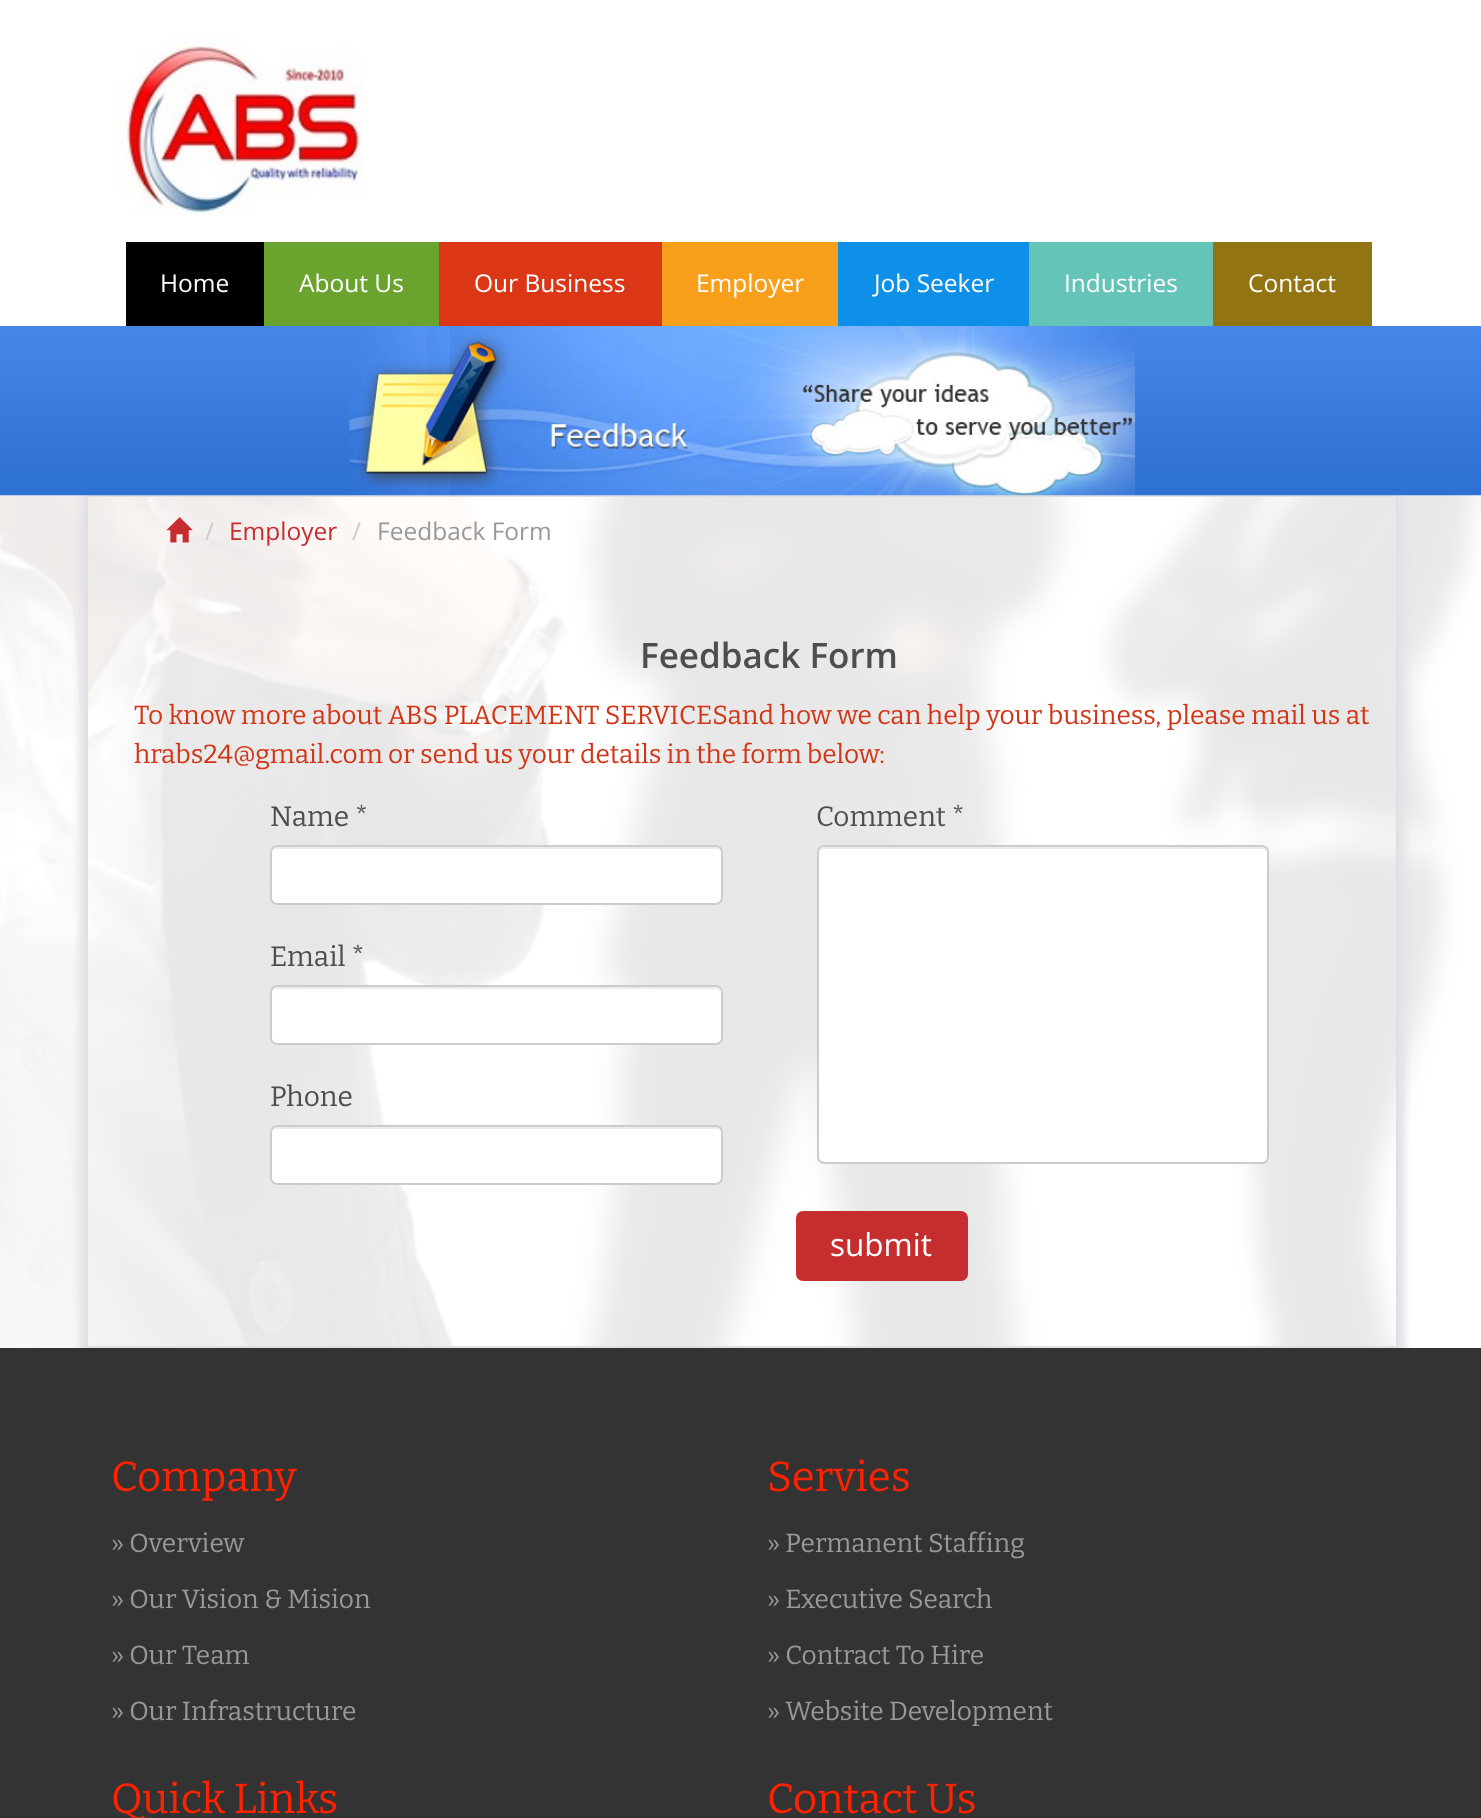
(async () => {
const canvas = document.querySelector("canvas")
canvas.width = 1481
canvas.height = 1818
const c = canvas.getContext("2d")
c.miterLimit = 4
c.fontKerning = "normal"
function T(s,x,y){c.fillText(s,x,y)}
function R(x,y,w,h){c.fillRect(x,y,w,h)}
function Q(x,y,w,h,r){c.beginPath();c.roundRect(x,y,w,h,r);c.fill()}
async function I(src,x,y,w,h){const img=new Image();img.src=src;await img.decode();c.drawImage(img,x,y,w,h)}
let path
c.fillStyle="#fff"
R(0,0,1481,1818)
await I("1.png",0,326,1481,1022)
await I("2.png",112,34,253,181)
c.fillStyle="#000"
R(126,242,138,84)
c.font="24.5px Open Sans"
c.fillStyle="#fff"
T("Home",160,292)
c.fillStyle="#6aa42f"
R(264,242,175,84)
c.fillStyle="#fff"
T("About Us",299,292)
c.fillStyle="#db3615"
R(439,242,223,84)
c.fillStyle="#fff"
T("Our Business",474,292)
c.fillStyle="#f89f1b"
R(662,242,176,84)
c.fillStyle="#fff"
T("Employer",696,292)
c.fillStyle="#0e90e8"
R(838,242,191,84)
c.fillStyle="#fff"
T("Job Seeker",874,292)
c.fillStyle="#64c4b8"
R(1029,242,184,84)
c.fillStyle="#fff"
T("Industries",1064,292)
c.fillStyle="#927512"
R(1213,242,159,84)
c.fillStyle="#fff"
T("Contact",1248,292)
c.fillStyle="#ffffffe6"
R(0,495,1481,853)
c.save()
path = new Path2D("M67 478h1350v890h-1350zm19 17h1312v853h-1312z")
c.clip(path,"evenodd")
c.fillStyle="#e3e2e7"
c.filter="blur(3.5px)"
c.beginPath()
c.rect(79,490,1326,866)
c.fill()
c.filter="none"
c.restore()
c.strokeStyle="#e0dfe4"
c.lineWidth=2
c.strokeRect(87,496,1310,851)
await I("3.png",0,326,1481,170)
await I("4.png",166,517,27,26)
c.fillStyle="#ccc"
T("/",205,540)
c.fillStyle="#c52d2f"
T("Employer",229,540)
c.fillStyle="#ccc"
T("/",352,540)
c.fillStyle="#999"
T("Feedback Form",377,540)
c.font="600 35px Open Sans"
c.fillStyle="#4e4e4e"
T("Feedback Form",640,668)
c.wordSpacing="0.25px"
c.font="100 26.25px Bitter"
c.fillStyle="#d23516"
T("To know more about ABS PLACEMENT SERVICESand how we can help your business, please mail us at",134,724)
c.wordSpacing="0px"
T("hrabs24@gmail.com or send us your details in the form below:",134,763)
c.font="100 28px Bitter"
c.fillStyle="#4e4e4e"
T("Name *",270,826)
c.fillStyle="#fff"
Q(270,845,453,60,7)
c.fillStyle="#ececec"
path = new Path2D("M276 849h440c3 0 5 2 5 5c0-3-1-7-5-7h-440c-4 0-5 4-5 7c0-3 3-5 5-5z")
c.fill(path)
c.beginPath()
c.roundRect(271,846,451,58,6)
c.strokeStyle="#ccc"
c.stroke()
c.fillStyle="#4e4e4e"
T("Email *",270,966)
c.fillStyle="#fff"
Q(270,985,453,60,7)
c.fillStyle="#ececec"
path = new Path2D("M276 989h440c3 0 5 2 5 5c0-3-1-7-5-7h-440c-4 0-5 4-5 7c0-3 3-5 5-5z")
c.fill(path)
c.beginPath()
c.roundRect(271,986,451,58,6)
c.stroke()
c.fillStyle="#4e4e4e"
T("Phone",270,1106)
c.fillStyle="#fff"
Q(270,1125,453,60,7)
c.fillStyle="#ececec"
path = new Path2D("M276 1129h440c3 0 5 2 5 5c0-3-1-7-5-7h-440c-4 0-5 4-5 7c0-3 3-5 5-5z")
c.fill(path)
c.beginPath()
c.roundRect(271,1126,451,58,6)
c.stroke()
c.fillStyle="#4e4e4e"
T("Comment *",816,826)
c.fillStyle="#fff"
Q(817,845,452,319,7)
c.fillStyle="#ececec"
path = new Path2D("M824 849h438c3 0 5 2 5 5c0-3-1-7-5-7h-438c-4 0-5 4-5 7c0-3 2-5 5-5z")
c.fill(path)
c.beginPath()
c.roundRect(818,846,450,317,6)
c.stroke()
c.fillStyle="#c52d2f"
Q(796,1211,172,70,7)
c.font="31.5px Open Sans"
c.fillStyle="#fff"
T("submit",830,1256)
c.fillStyle="#333"
R(0,1348,1481,470)
c.font="100 42px Bitter"
c.fillStyle="#fe2300"
T("Company",111,1491)
c.font="100 26.25px Bitter"
c.fillStyle="#999"
T("» Overview",111,1552)
T("» Our Vision & Mision",111,1608)
T("» Our Team",111,1664)
T("» Our Infrastructure",111,1720)
c.font="100 42px Bitter"
c.fillStyle="#fe2300"
T("Servies",767,1491)
c.font="100 26.25px Bitter"
c.fillStyle="#999"
T("» Permanent Staffing",767,1552)
T("» Executive Search",767,1608)
T("» Contract To Hire",767,1664)
T("» Website Development",767,1720)
c.font="100 42px Bitter"
c.fillStyle="#fe2300"
T("Quick Links",111,1813)
T("Contact Us",767,1813)
})()
